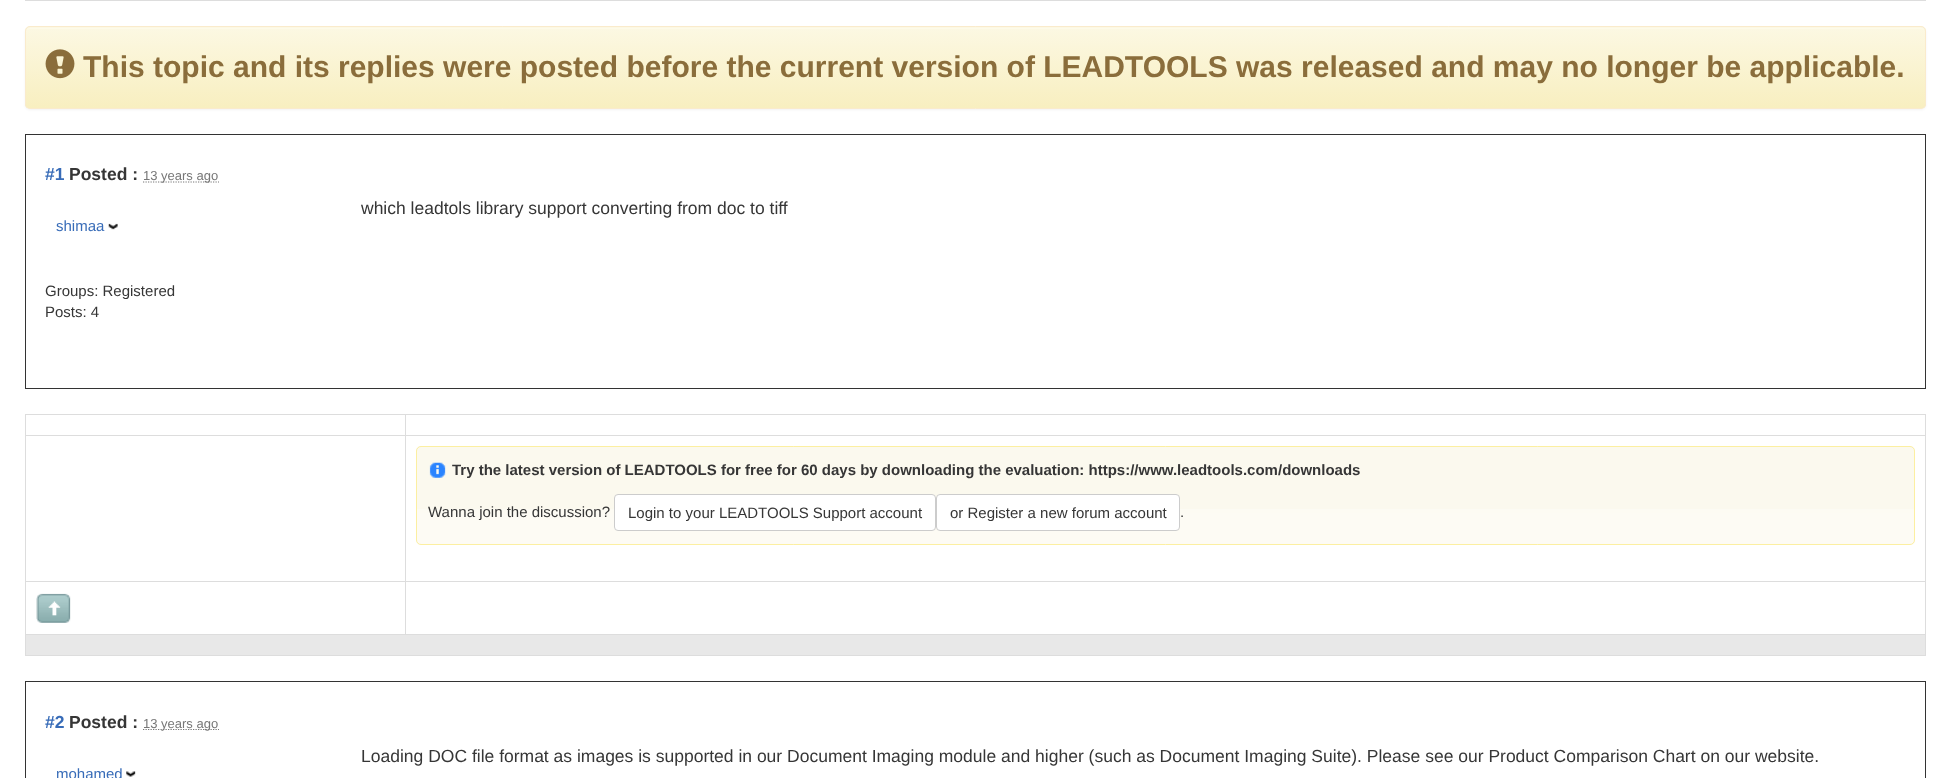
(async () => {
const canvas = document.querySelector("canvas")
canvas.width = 1951
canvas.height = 778
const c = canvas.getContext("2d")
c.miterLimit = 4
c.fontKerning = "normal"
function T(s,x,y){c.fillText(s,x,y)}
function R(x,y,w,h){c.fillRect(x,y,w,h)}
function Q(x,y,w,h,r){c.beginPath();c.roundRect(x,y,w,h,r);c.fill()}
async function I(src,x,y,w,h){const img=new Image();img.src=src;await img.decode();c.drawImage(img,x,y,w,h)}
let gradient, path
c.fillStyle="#fff"
R(0,0,1951,778)
c.fillStyle="#ddd"
R(25,0,1901,1)
c.fillStyle="#0000000d"
c.filter="blur(1px)"
c.beginPath()
c.roundRect(25,28,1901,82,5)
c.fill()
c.filter="none"
c.fillStyle="#fcf8e3"
Q(25,26,1901,83,5)
c.save()
c.beginPath()
c.roundRect(25,26,1901,83,5)
c.clip()
gradient = c.createLinearGradient(976,27,976,108)
gradient.addColorStop(0,"#fcf8e3")
gradient.addColorStop(1,"#f8efc0")
c.fillStyle = gradient
R(25,28,1901,80)
c.restore()
c.fillStyle="#fdfae9"
path = new Path2D("M30 29h1891c2 0 4 1 4 3c0-2-2-4-4-4h-1891c-2 0-4 2-4 4c0-2 2-3 4-3z")
c.fill(path)
c.beginPath()
c.roundRect(25.5,26.5,1900,82,4.5)
c.strokeStyle="#faebcc"
c.stroke()
await I("1.png",45,49,30,30)
c.font="bold 30px Liberation Sans"
c.fillStyle="#8a6d3b"
T("This topic and its replies were posted before the current version of LEADTOOLS was released and may no longer be applicable.",83,77)
c.strokeStyle="#333"
c.strokeRect(25.5,134.5,1900,254)
c.font="bold 17.5px Liberation Sans"
c.fillStyle="#386cb8"
T("#1",45,180)
c.fillStyle="#363636"
T("Posted :",69,180)
path = new Path2D("M143 182h76")
c.strokeStyle="#777"
c.lineWidth=1.2
c.setLineDash([1.25,1.25])
c.stroke(path)
c.font="13px Liberation Sans"
c.fillStyle="#777"
T("13 years ago",143,180)
c.font="17.5px Liberation Sans"
c.fillStyle="#363636"
T("which leadtols library support converting from doc to tiff",361,214)
c.font="15px Liberation Sans"
c.fillStyle="#386cb8"
T("shimaa",56,231)
await I("2.png",108,223,10,7)
c.fillStyle="#363636"
T("Groups: Registered",45,296)
T("Posts: 4",45,317)
c.fillStyle="#ddd"
R(25,414,1901,1)
R(1925,414,1,242)
R(25,655,1901,1)
R(25,414,1,242)
R(405,435,1521,1)
R(405,581,1521,1)
R(25,634,1901,1)
R(405,581,1,54)
R(25,581,381,1)
R(405,435,1,148)
R(25,435,381,1)
R(405,414,1,22)
c.fillStyle="#fbf9ee"
Q(416,446,1499,99,5)
await I("3.png",417,509,1498,36)
c.beginPath()
c.roundRect(416.5,446.5,1498,98,4.5)
c.strokeStyle="#fcefa1"
c.lineWidth=1
c.setLineDash([])
c.stroke()
await I("4.png",429,462,17,16)
c.font="bold 15px Liberation Sans"
c.fillStyle="#363636"
T("Try the latest version of LEADTOOLS for free for 60 days by downloading the evaluation: https://www.leadtools.com/downloads",452,475)
c.font="15px Liberation Sans"
T("Wanna join the discussion?",428,517)
c.fillStyle="#fff"
c.beginPath()
c.roundRect(614.5,494.5,321,36,3.5)
c.fill()
c.strokeStyle="#ccc"
c.stroke()
c.fillStyle="#363636"
T("Login to your LEADTOOLS Support account",628,518)
c.fillStyle="#fff"
c.beginPath()
c.roundRect(936.5,494.5,243,36,3.5)
c.fill()
c.stroke()
c.fillStyle="#363636"
T("or Register a new forum account",950,518)
T(".",1180,517)
await I("5.png",36,593,35,30)
c.fillStyle="#e8e8e8"
R(26,635,1899,20)
c.strokeStyle="#333"
c.strokeRect(25.5,681.5,1900,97)
c.font="bold 17.5px Liberation Sans"
c.fillStyle="#386cb8"
T("#2",45,728)
c.fillStyle="#363636"
T("Posted :",69,728)
path = new Path2D("M143 729.5h76")
c.strokeStyle="#777"
c.lineWidth=1.2
c.setLineDash([1.25,1.25])
c.stroke(path)
c.font="13px Liberation Sans"
c.fillStyle="#777"
T("13 years ago",143,728)
c.font="17.5px Liberation Sans"
c.fillStyle="#363636"
T("Loading DOC file format as images is supported in our Document Imaging module and higher (such as Document Imaging Suite). Please see our Product Comparison Chart on our website.",361,762)
c.font="15px Liberation Sans"
c.fillStyle="#386cb8"
T("mohamed",56,779)
await I("6.png",126,771,10,6)
})()
